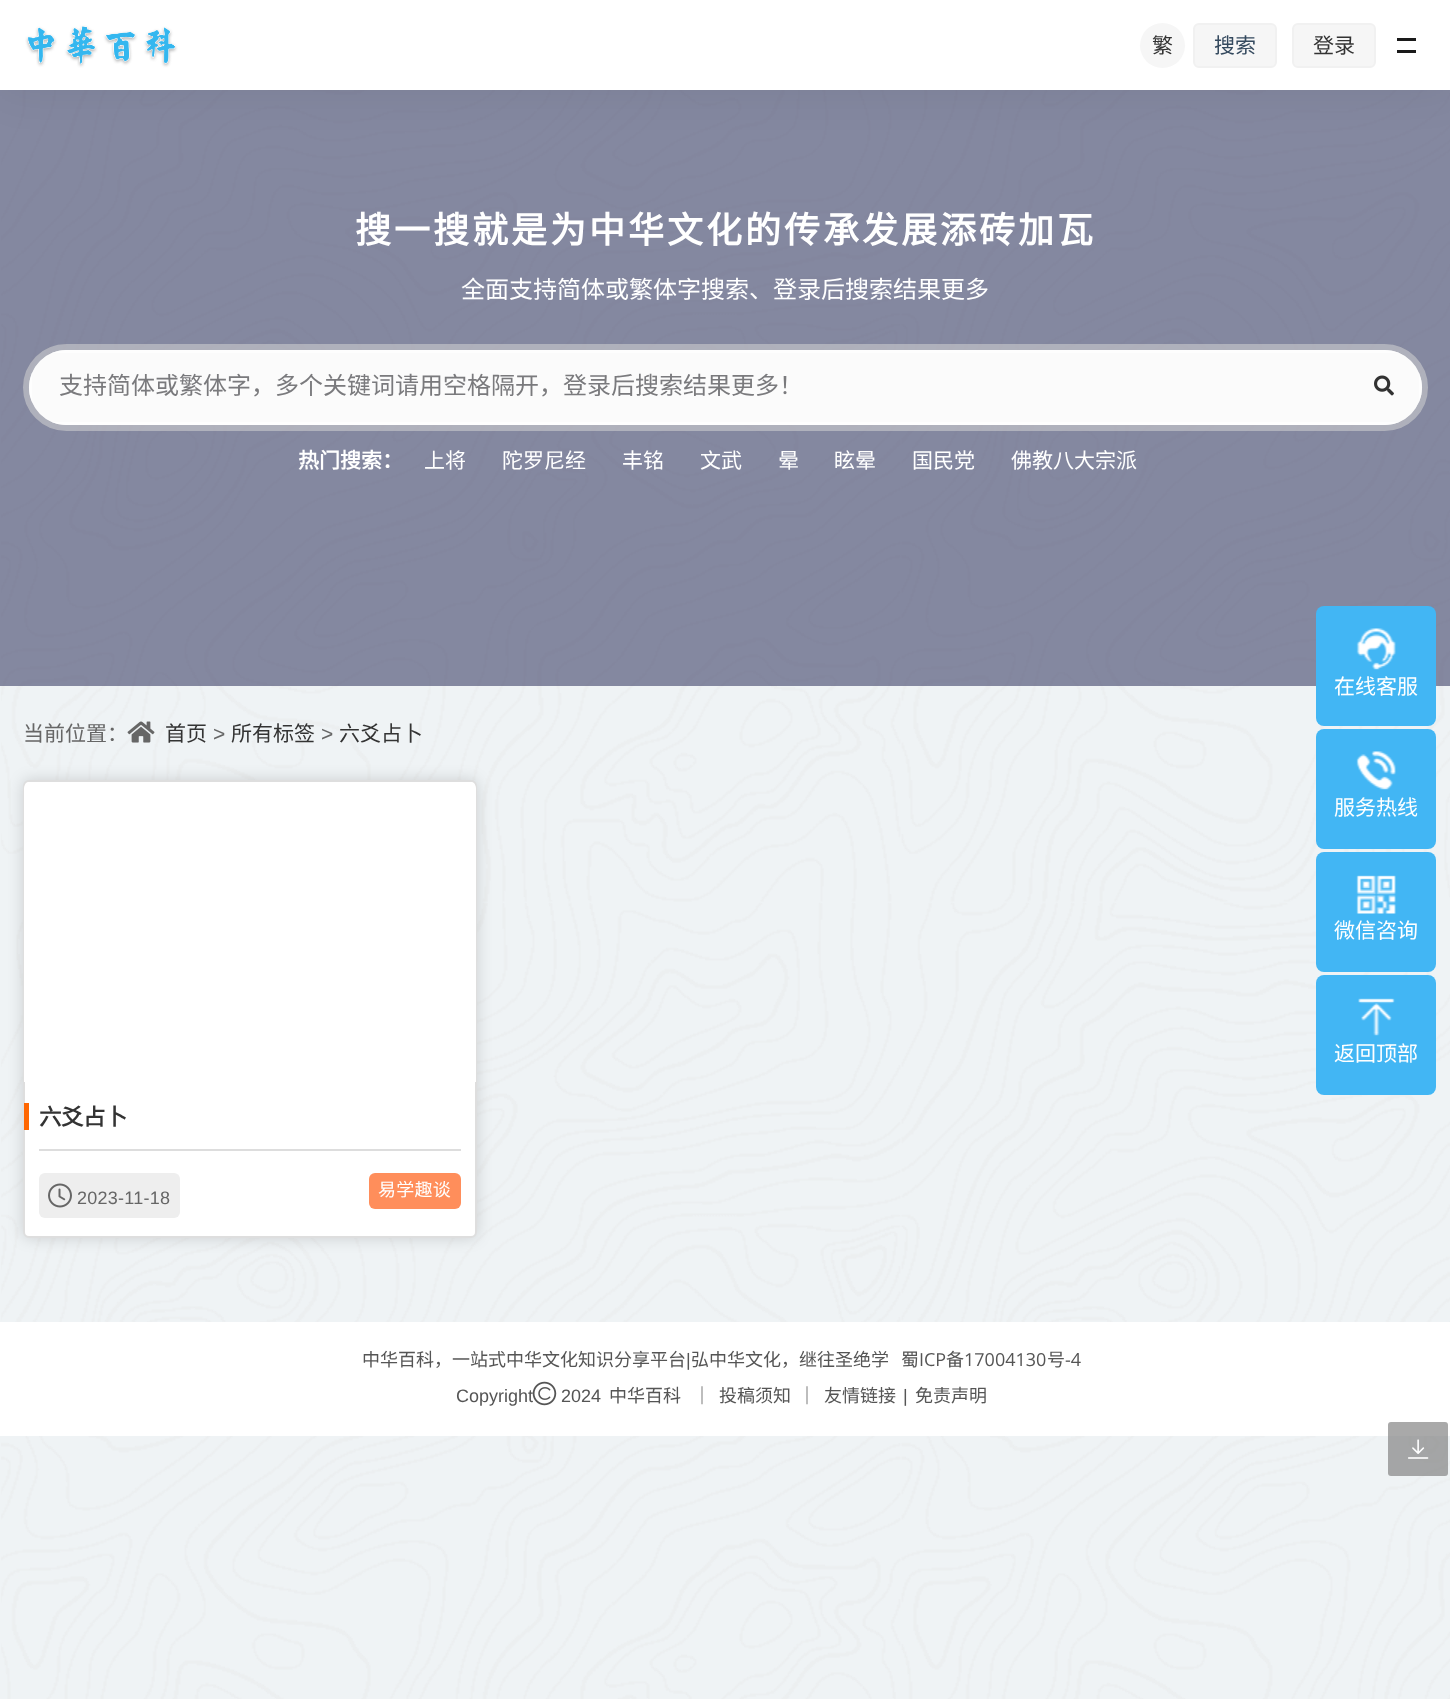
(async () => {
const canvas = document.querySelector("canvas")
canvas.width = 1450
canvas.height = 1699
const c = canvas.getContext("2d")
c.miterLimit = 4
c.fontKerning = "normal"
function T(s,x,y){c.fillText(s,x,y)}
function R(x,y,w,h){c.fillRect(x,y,w,h)}
function Q(x,y,w,h,r){c.beginPath();c.roundRect(x,y,w,h,r);c.fill()}
async function I(src,x,y,w,h){const img=new Image();img.src=src;await img.decode();c.drawImage(img,x,y,w,h)}
let path
c.fillStyle="#eff3f5"
R(0,0,1450,1699)
await I("1.png",1,90,1449,1609)
c.fillStyle="#191e4b80"
R(0,90,1450,596)
c.fillStyle="#00000012"
c.filter="blur(22.5px)"
c.beginPath()
c.rect(0,0,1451,90)
c.fill()
c.filter="none"
c.fillStyle="#fff"
R(0,0,1450,90)
await I("2.png",25,25,153,43)
c.fillStyle="#f6f6f6"
c.beginPath()
c.arc(1162.5,45.5,22.5,0,7)
c.fill()
c.font="21px Noto Sans CJK SC"
c.fillStyle="#333"
T("繁",1152,53)
c.fillStyle="#f6f6f6"
c.beginPath()
c.roundRect(1194,24,82,43,5)
c.fill()
c.strokeStyle="#f1f1f1"
c.lineWidth=2
c.stroke()
c.fillStyle="#34495e"
T("搜索",1214,53)
c.fillStyle="#f6f6f6"
c.beginPath()
c.roundRect(1293,24,82,43,5)
c.fill()
c.stroke()
c.fillStyle="#333"
T("登录",1313,53)
c.fillStyle="#1a1a1a"
R(1397,38,19,3)
R(1397,50,19,3)
c.letterSpacing="3px"
c.font="bold 36px Noto Sans CJK SC"
c.fillStyle="#fff"
T("搜一搜就是为中华文化的传承发展添砖加瓦",355,243)
c.letterSpacing="0px"
c.font="24px Noto Sans CJK SC"
T("全面支持简体或繁体字搜索、登录后搜索结果更多",461,298)
c.fillStyle="#9e9e9e61"
Q(23,344,1405,87,43.5)
c.beginPath()
c.roundRect(26,347,1399,81,40.5)
c.strokeStyle="#ffffff4d"
c.lineWidth=6
c.stroke()
c.fillStyle="#ffffffcc"
Q(29,350,1393,75,37.5)
Q(29,350,1393,75,37.5)
path = new Path2D("M66 425h1318c6 0 11-1 15-3h-1347c4 2 9 3 14 3zm-34-23c-4-9-4-20 0-29zm34-52c-5 0-10 1-14 3h1347c-4-2-9-3-15-3zm1353 23v29c4-9 4-20 0-29z")
c.fill(path,"evenodd")
c.fillStyle="#7a7a7d"
T("支持简体或繁体字，多个关键词请用空格隔开，登录后搜索结果更多！",59,394)
await I("3.png",1374,375,20,21)
c.font="bold 21px Noto Sans CJK SC"
c.fillStyle="#fff"
T("热门搜索：",298,468)
c.font="21px Noto Sans CJK SC"
T("上将",424,468)
T("陀罗尼经",502,468)
T("丰铭",622,468)
T("文武",700,468)
T("晕",778,468)
T("眩晕",834,468)
T("国民党",912,468)
T("佛教八大宗派",1011,468)
c.fillStyle="#666"
T("当前位置：",23,741)
await I("4.png",127,721,28,22)
c.fillStyle="#333"
T("首页",165,741)
c.font="21px Liberation Sans"
c.fillStyle="#666"
T(">",213,741)
c.font="21px Noto Sans CJK SC"
c.fillStyle="#333"
T("所有标签",231,741)
c.font="21px Liberation Sans"
c.fillStyle="#666"
T(">",321,741)
c.font="21px Noto Sans CJK SC"
c.fillStyle="#333"
T("六爻占卜",339,741)
c.fillStyle="#42b6f4"
Q(1316,606,120,120,8)
await I("5.png",1356,628,40,42)
c.fillStyle="#fff"
T("在线客服",1334,694)
c.fillStyle="#42b6f4"
Q(1316,729,120,120,8)
await I("6.png",1356,751,40,39)
c.fillStyle="#fff"
T("服务热线",1334,815)
c.fillStyle="#42b6f4"
Q(1316,852,120,120,8)
await I("7.png",1356,875,40,39)
c.fillStyle="#fff"
T("微信咨询",1334,938)
c.fillStyle="#42b6f4"
Q(1316,975,120,120,8)
await I("8.png",1358,998,37,38)
c.fillStyle="#fff"
T("返回顶部",1334,1061)
c.fillStyle="#00000026"
c.filter="blur(7.5px)"
c.beginPath()
c.roundRect(23,780,454,458,6)
c.fill()
c.filter="none"
c.fillStyle="#fff"
c.beginPath()
c.roundRect(24,781,452,456,5)
c.fill()
c.strokeStyle="#dedede"
c.lineWidth=2
c.stroke()
c.beginPath()
c.roundRect(24,782,452,300,[6,6,0,0])
c.fill()
c.fillStyle="#ddd"
R(39,1149,422,2)
c.fillStyle="#f60"
R(24,1103,5,27)
c.letterSpacing="-0.5px"
c.font="bold 22.5px Noto Sans CJK SC"
c.fillStyle="#333"
T("六爻占卜",39,1125)
c.fillStyle="#eee"
Q(39,1173,141,45,6)
await I("9.png",48,1183,24,25)
c.letterSpacing="0.25px"
c.font="18px Liberation Sans"
c.fillStyle="#666"
T("2023-11-18",77,1204)
c.fillStyle="#ff8e5b"
Q(369,1173,92,36,6)
c.font="18px Noto Sans CJK SC"
c.fillStyle="#fff"
T("易学趣谈",378,1196)
R(0,1322,1450,114)
c.letterSpacing="0px"
c.fillStyle="#555"
T("中华百科，一站式中华文化知识分享平台",362,1366)
c.font="18px Liberation Sans"
T("|",686,1366)
c.font="18px Noto Sans CJK SC"
T("弘中华文化，继往圣绝学",691,1366)
T("蜀",901,1366)
c.font="18px Open Sans"
T("ICP",919,1366)
c.font="18px Noto Sans CJK SC"
T("备",946,1366)
c.font="18px Open Sans"
T("17004130",964,1366)
c.font="18px Noto Sans CJK SC"
T("号",1047,1366)
c.font="18px Open Sans"
T("-4",1065,1366)
c.font="18px Liberation Sans"
T("Copyright",456,1402)
await I("10.png",532,1381,25,25)
T("2024",561,1402)
c.font="18px Noto Sans CJK SC"
T("中华百科",609,1402)
T("｜",693,1402)
T("投稿须知",719,1402)
T("｜",798,1402)
T("友情链接",824,1402)
c.font="18px Liberation Sans"
T("|",903,1402)
c.font="18px Noto Sans CJK SC"
T("免责声明",915,1402)
c.fillStyle="#808080ad"
Q(1388,1422,60,54,3)
await I("11.png",1408,1439,21,20)
})()
